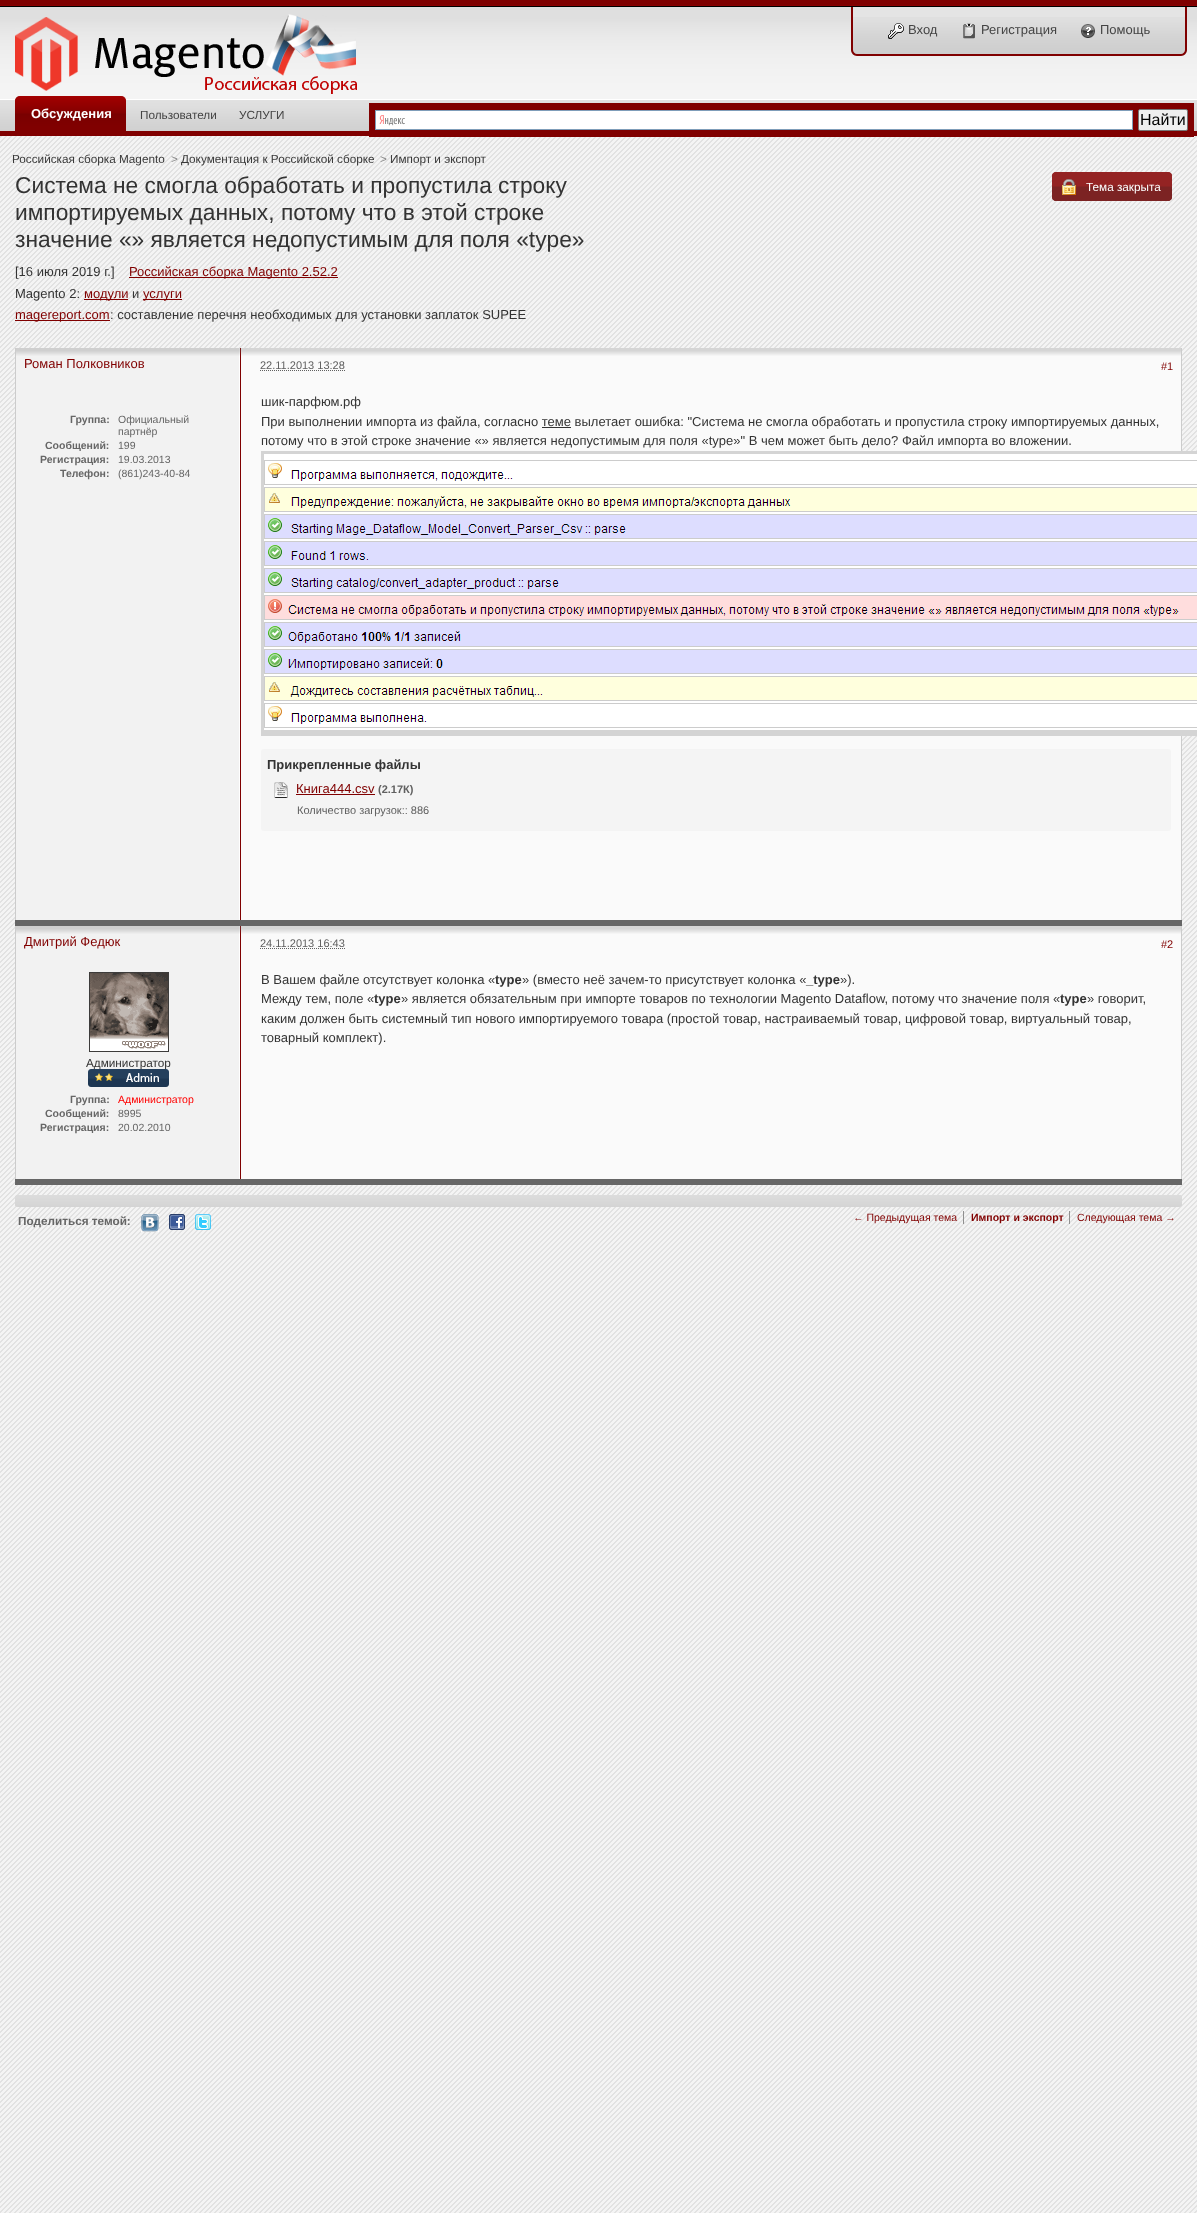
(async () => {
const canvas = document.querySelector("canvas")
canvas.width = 1197
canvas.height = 2213
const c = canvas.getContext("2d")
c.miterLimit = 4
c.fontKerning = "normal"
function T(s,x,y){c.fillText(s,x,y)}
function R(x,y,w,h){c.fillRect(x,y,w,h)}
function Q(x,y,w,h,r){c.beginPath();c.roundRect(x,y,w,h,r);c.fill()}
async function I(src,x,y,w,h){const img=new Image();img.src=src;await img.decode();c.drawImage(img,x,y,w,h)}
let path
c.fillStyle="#e2e2e2"
R(0,0,1197,2213)
await I("1.png",0,136,1197,2077)
await I("2.png",0,0,1197,100)
await I("3.png",15,14,342,80)
c.fillStyle="#e4e4e4"
R(853,7,332,10)
await I("4.png",851,17,336,39)
c.fillStyle="#800000"
path = new Path2D("M851 7h336v43c0 3-3 6-6 6h-324c-3 0-6-3-6-6zm2 0h332v43c0 2-2 4-4 4h-324c-2 0-4-2-4-4z")
c.fill(path,"evenodd")
await I("5.png",888,23,16,16)
c.font="13px Liberation Sans"
c.fillStyle="#444"
T("Вход",908,34)
await I("6.png",963,23,12,16)
T("Регистрация",981,34)
await I("7.png",1081,24,14,14)
T("Помощь",1100,34)
await I("8.png",0,100,1197,31)
c.fillStyle="#800000"
R(0,131,1197,5)
await I("9.png",15,96,6,35)
await I("10.png",21,96,105,35)
c.font="bold 13px Liberation Sans"
c.fillStyle="#fff"
T("Обсуждения",31,118)
c.font="11.75px Liberation Sans"
c.fillStyle="#444"
T("Пользователи",140,119)
T("УСЛУГИ",239,119)
c.fillStyle="#800000"
R(369,103,825,34)
c.fillStyle="#fff"
R(376,111,756,18)
await I("11.png",379,115,26,11)
c.strokeStyle="#7f9db9"
c.strokeRect(375.5,110.5,757,19)
c.fillStyle="#efefef"
c.beginPath()
c.roundRect(1138.5,109.5,49,21,1.5)
c.fill()
c.strokeStyle="#767676"
c.stroke()
c.font="16px Liberation Sans"
c.fillStyle="#000"
T("Найти",1140,125)
c.font="11.75px Liberation Sans"
c.fillStyle="#393939"
T("Российская сборка Magento",12,163)
c.fillStyle="#878787"
T(">",171,163)
c.fillStyle="#393939"
T("Документация к Российской сборке",181,163)
c.fillStyle="#878787"
T(">",380,163)
c.fillStyle="#393939"
T("Импорт и экспорт",390,163)
c.font="22.75px Liberation Sans"
c.fillStyle="#333"
T("Система не смогла обработать и пропустила строку",15,193)
T("импортируемых данных, потому что в этой строке",15,220)
T("значение «» является недопустимым для поля «type»",15,247)
c.font="13px Liberation Sans"
T("[16 июля 2019 г.]",15,276)
c.fillStyle="#800000"
R(129,277,209,1)
T("Российская сборка Magento 2.52.2",129,276)
c.fillStyle="#333"
T("Magento 2:",15,298)
c.fillStyle="#800000"
R(84,299,44,1)
T("модули",84,298)
c.fillStyle="#333"
T("и",132,298)
c.fillStyle="#800000"
R(143,299,39,1)
T("услуги",143,298)
R(15,320,95,1)
T("magereport.com",15,319)
c.fillStyle="#333"
T(": составление перечня необходимых для установки заплаток SUPEE",110,319)
await I("12.png",1052,172,6,29)
await I("13.png",1058,172,114,29)
await I("14.png",1062,179,14,16)
c.font="11.75px Liberation Sans"
c.fillStyle="#fff"
T("Тема закрыта",1086,191)
c.fillStyle="#fafafa"
R(241,348,940,572)
c.fillStyle="#666"
R(15,920,1167,6)
await I("15.png",16,348,225,572)
c.fillStyle="#ccc"
R(1181,348,1,572)
R(15,348,1,572)
await I("16.png",16,348,1165,8)
c.font="13px Liberation Sans"
c.fillStyle="#800000"
T("Роман Полковников",24,368)
c.font="11px Liberation Sans"
T("#1",1161,370)
c.font="bold 10.5px Liberation Sans"
c.fillStyle="#666"
T("Группа:",70,423)
c.font="10.5px Liberation Sans"
T("Официальный",118,423)
T("партнёр",118,435)
c.font="bold 10.5px Liberation Sans"
T("Сообщений:",45,449)
c.font="10.5px Liberation Sans"
T("199",118,449)
c.font="bold 10.5px Liberation Sans"
T("Регистрация:",40,463)
c.font="10.5px Liberation Sans"
T("19.03.2013",118,463)
c.font="bold 10.5px Liberation Sans"
T("Телефон:",60,477)
c.font="10.5px Liberation Sans"
T("(861)243-40-84",118,477)
c.font="11px Liberation Sans"
c.fillStyle="#606060"
T("22.11.2013 13:28",260,369)
path = new Path2D("M260 370.5h85")
c.strokeStyle="#606060"
c.setLineDash([1,1])
c.stroke(path)
c.font="13px Liberation Sans"
c.fillStyle="#333"
T("шик-парфюм.рф",261,406)
T("При выполнении импорта из файла, согласно теме вылетает ошибка: \"Система не смогла обработать и пропустила строку импортируемых данных,",261,426)
R(542,427,29,1)
T("потому что в этой строке значение «» является недопустимым для поля «type»\" В чем может быть дело? Файл импорта во вложении.",261,445)
c.fillStyle="#d4d4d4"
R(261,451,936,3)
R(261,730,936,6)
R(261,451,3,285)
await I("17.png",264,454,933,276)
c.fillStyle="#f4f4f4"
Q(261,749,910,82,3)
c.font="bold 13px Liberation Sans"
c.fillStyle="#333"
T("Прикрепленные файлы",267,769)
await I("18.png",274,782,14,16)
c.font="13px Liberation Sans"
c.fillStyle="#800000"
T("Книга444.csv",296,793)
R(296,794,79,1)
c.font="bold 11px Liberation Sans"
c.fillStyle="#606060"
T("(2.17К)",378,793)
c.font="11px Liberation Sans"
T("Количество загрузок:: 886",297,814)
c.fillStyle="#fafafa"
R(241,926,940,253)
c.fillStyle="#666"
R(15,1179,1167,6)
await I("19.png",16,926,225,253)
c.fillStyle="#ccc"
R(1181,926,1,253)
R(15,926,1,253)
await I("16.png",16,926,1165,8)
c.font="13px Liberation Sans"
c.fillStyle="#800000"
T("Дмитрий Федюк",24,946)
c.font="11px Liberation Sans"
T("#2",1161,948)
c.fillStyle="#606060"
T("24.11.2013 16:43",260,947)
path = new Path2D("M260 948.5h85")
c.stroke(path)
c.font="13px Liberation Sans"
c.fillStyle="#333"
T("В Вашем файле отсутствует колонка «",261,984)
c.font="bold 13px Liberation Sans"
T("type",495,984)
c.font="13px Liberation Sans"
T("» (вместо неё зачем-то присутствует колонка «",522,984)
c.font="bold 13px Liberation Sans"
T("_type",806,984)
c.font="13px Liberation Sans"
T("»).",840,984)
T("Между тем, поле «",261,1003)
c.font="bold 13px Liberation Sans"
T("type",374,1003)
c.font="13px Liberation Sans"
T("» является обязательным при импорте товаров по технологии Magento Dataflow, потому что значение поля «",401,1003)
c.font="bold 13px Liberation Sans"
T("type",1060,1003)
c.font="13px Liberation Sans"
T("» говорит,",1087,1003)
T("каким должен быть системный тип нового импортируемого товара (простой товар, настраиваемый товар, цифровой товар, виртуальный товар,",261,1023)
T("товарный комплект).",261,1042)
await I("20.png",89,972,80,80)
c.font="11.75px Liberation Sans"
T("Администратор",86,1067)
await I("21.png",88,1069,81,18)
c.font="bold 10.5px Liberation Sans"
c.fillStyle="#666"
T("Группа:",70,1103)
c.font="10.5px Liberation Sans"
c.fillStyle="#f00"
T("Администратор",118,1103)
c.font="bold 10.5px Liberation Sans"
c.fillStyle="#666"
T("Сообщений:",45,1117)
c.font="10.5px Liberation Sans"
T("8995",118,1117)
c.font="bold 10.5px Liberation Sans"
T("Регистрация:",40,1131)
c.font="10.5px Liberation Sans"
T("20.02.2010",118,1131)
c.fillStyle="#d4d4d4"
Q(15,1195,1167,12,3)
await I("22.png",15,1195,1167,11)
c.font="bold 11.75px Liberation Sans"
c.fillStyle="#666"
T("Поделиться темой:",18,1225)
await I("23.png",141,1214,18,18)
await I("24.png",169,1214,16,16)
await I("25.png",195,1214,16,16)
c.fillStyle="#8f8f8f"
R(963,1211,1,13)
c.font="10.5px Liberation Sans"
c.fillStyle="#800000"
T("← Предыдущая тема",853,1221)
c.font="bold 10.5px Liberation Sans"
T("Импорт и экспорт",971,1221)
c.fillStyle="#8f8f8f"
R(1069,1211,1,13)
c.font="10.5px Liberation Sans"
c.fillStyle="#800000"
T("Следующая тема →",1077,1221)
})()
